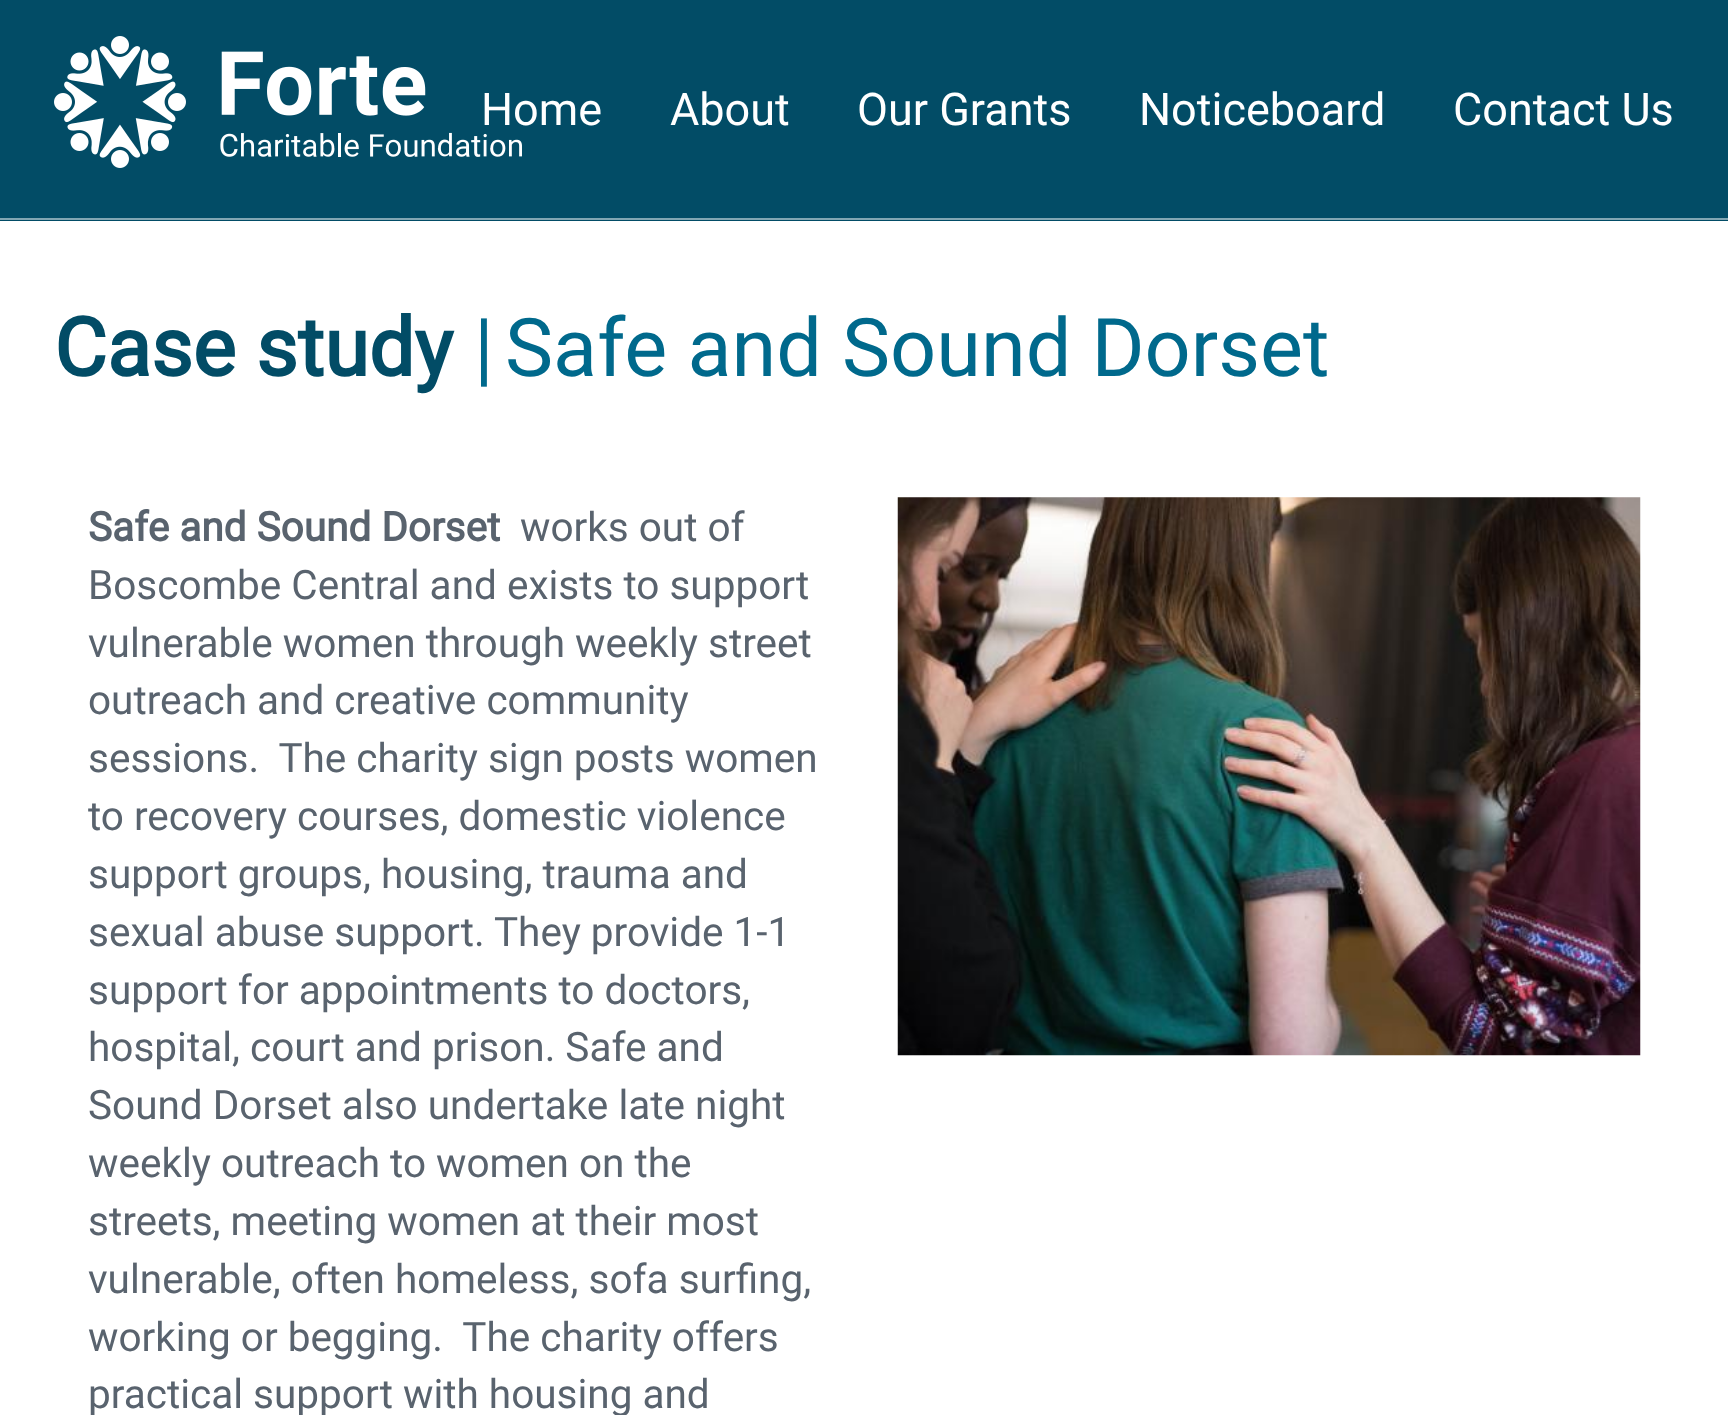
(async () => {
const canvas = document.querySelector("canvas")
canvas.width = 1728
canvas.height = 1415
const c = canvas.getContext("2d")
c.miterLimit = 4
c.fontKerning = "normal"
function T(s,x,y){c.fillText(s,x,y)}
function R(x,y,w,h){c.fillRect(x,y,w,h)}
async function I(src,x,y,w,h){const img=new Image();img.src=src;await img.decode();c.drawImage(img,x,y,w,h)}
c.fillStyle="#fff"
R(0,0,1728,1415)
c.fillStyle="#024c66"
R(0,0,1728,221)
c.fillStyle="#81a6b3"
R(0,218,1728,2)
await I("1.png",54,36,468,132)
c.font="45px Roboto"
c.fillStyle="#fff"
T("Home",481,125)
T("About",670,125)
T("Our Grants",857,125)
T("Noticeboard",1139,125)
T("Contact Us",1453,125)
c.font="bold 81px Roboto"
c.fillStyle="#024c66"
T("Case study",54,376)
c.font="81px Roboto"
c.fillStyle="#00698c"
T("|",474,376)
T("Safe and Sound Dorset",505,376)
c.font="bold 40.5px Roboto"
c.fillStyle="#59636e"
T("Safe and Sound Dorset",88,541)
c.font="40.5px Roboto"
T("works out of",520,541)
T("Boscombe Central and exists to support",88,599)
T("vulnerable women through weekly street",88,657)
T("outreach and creative community",88,714)
T("sessions.  The charity sign posts women",88,772)
T("to recovery courses, domestic violence",88,830)
T("support groups, housing, trauma and",88,888)
T("sexual abuse support. They provide 1-1",88,946)
T("support for appointments to doctors,",88,1004)
T("hospital, court and prison. Safe and",88,1061)
T("Sound Dorset also undertake late night",88,1119)
T("weekly outreach to women on the",88,1177)
T("streets, meeting women at their most",88,1235)
T("vulnerable, often homeless, sofa surfing,",88,1293)
T("working or begging.  The charity offers",88,1351)
T("practical support with housing and",88,1408)
await I("2.png",897,497,744,559)
})()
